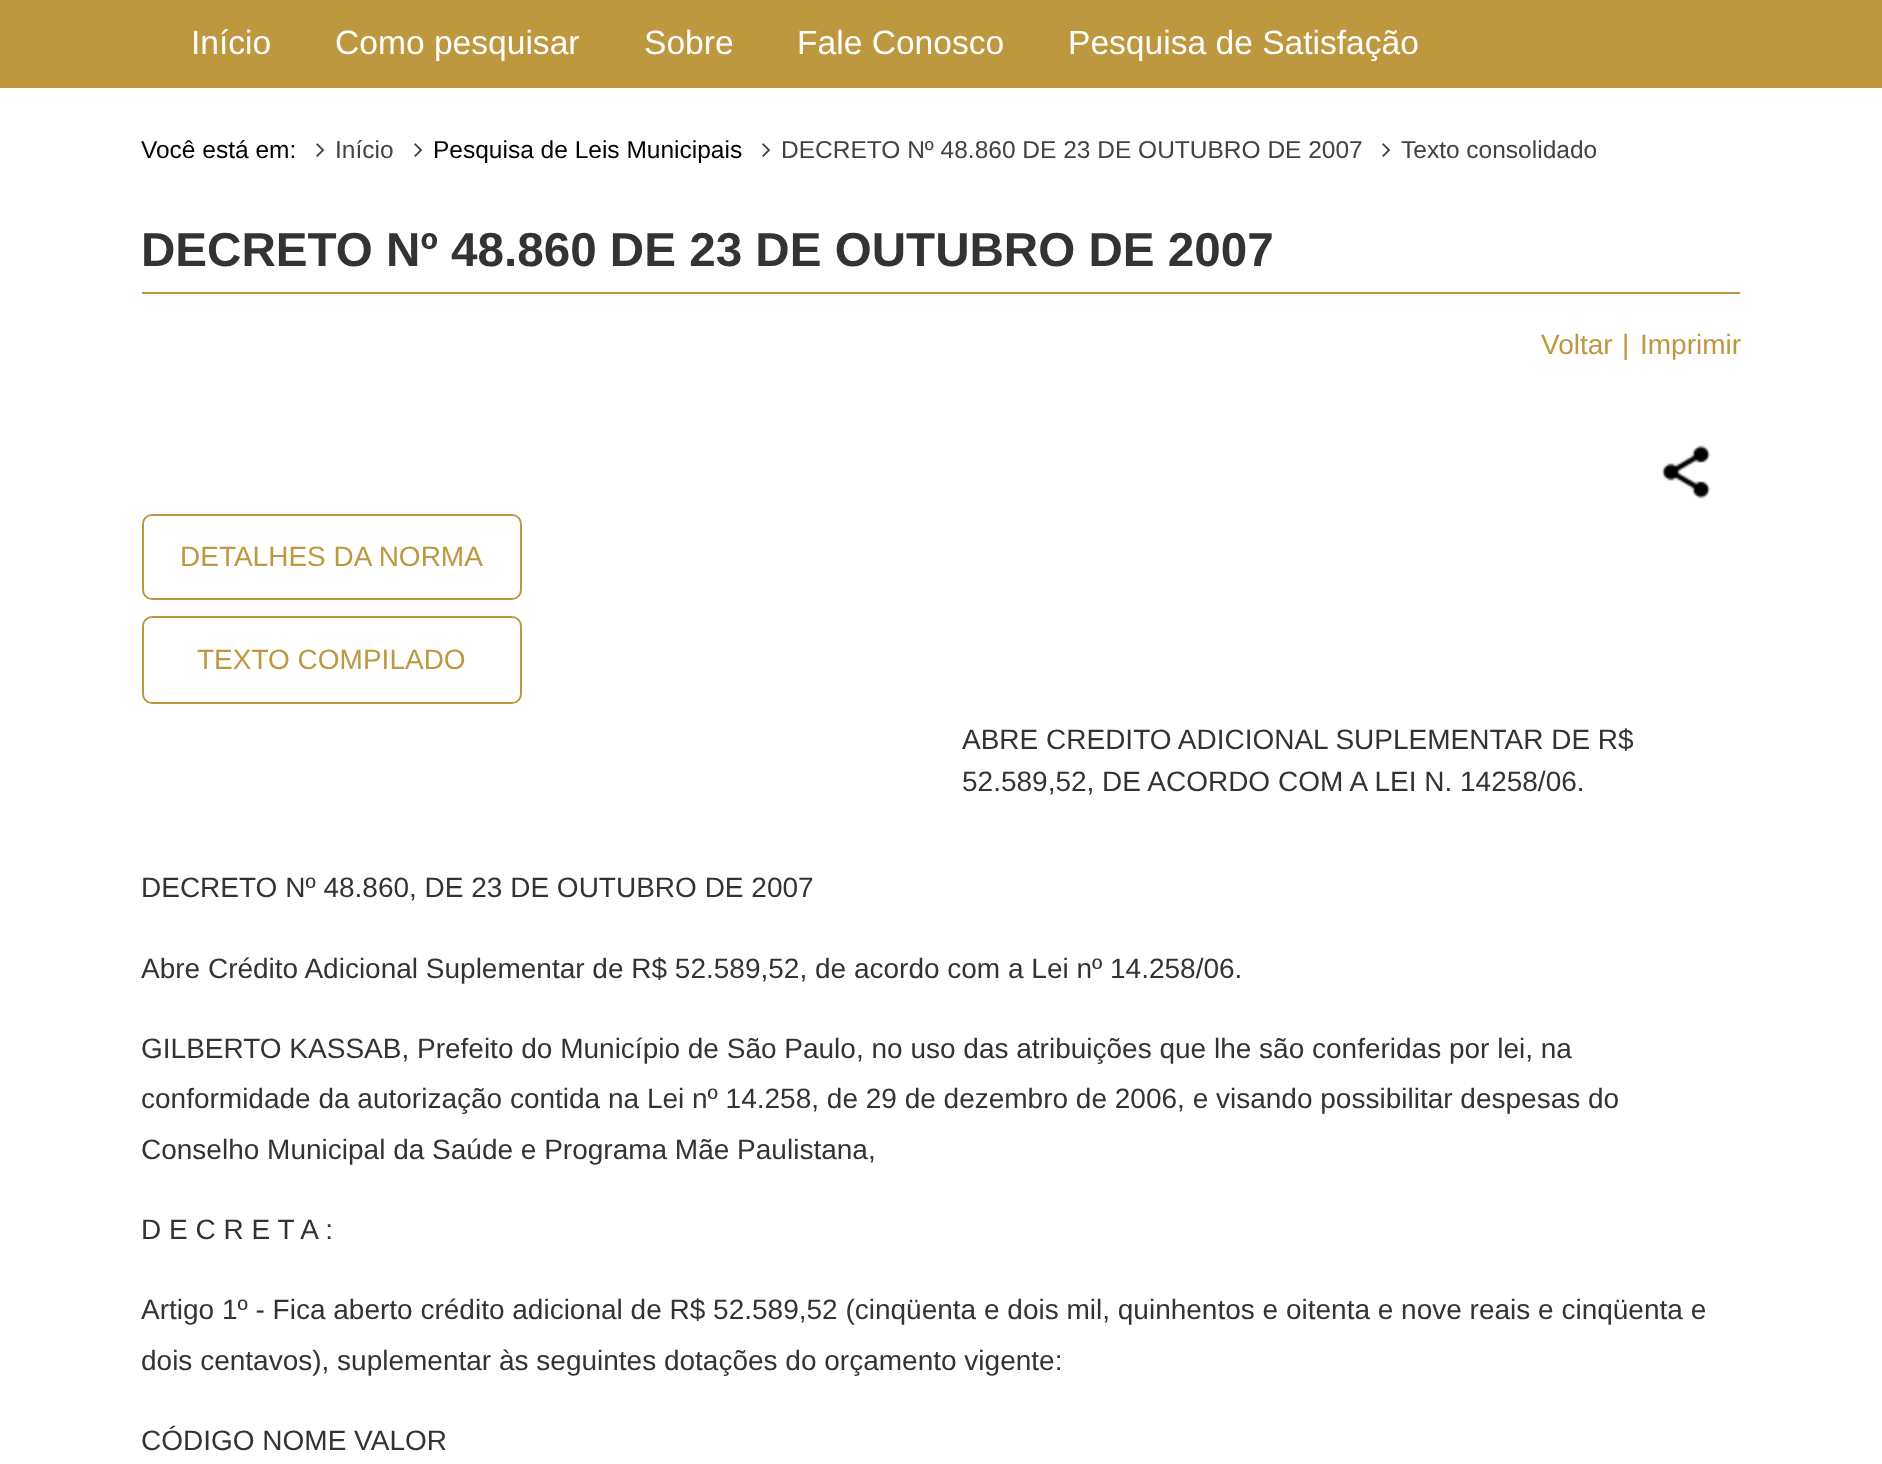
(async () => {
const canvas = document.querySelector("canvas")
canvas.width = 1882
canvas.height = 1464
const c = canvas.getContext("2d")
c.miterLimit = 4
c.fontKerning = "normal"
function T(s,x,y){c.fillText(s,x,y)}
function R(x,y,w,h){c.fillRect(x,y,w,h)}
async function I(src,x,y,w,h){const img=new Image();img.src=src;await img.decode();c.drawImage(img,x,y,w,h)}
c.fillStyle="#fff"
R(0,0,1882,1464)
c.fillStyle="#bd983f"
R(0,0,1882,88)
c.font="33.6px Liberation Sans"
c.fillStyle="#fff"
T("Início",191,54)
T("Como pesquisar",335,54)
T("Sobre",644,54)
T("Fale Conosco",797,54)
T("Pesquisa de Satisfação",1068,54)
c.font="24.5px Liberation Sans"
c.fillStyle="#000"
T("Você está em:",141,158)
await I("1.png",316,143,9,14)
c.fillStyle="#424242"
T("Início",335,158)
await I("1.png",414,143,9,14)
c.fillStyle="#000"
T("Pesquisa de Leis Municipais",433,158)
await I("1.png",762,143,9,14)
c.fillStyle="#424242"
T("DECRETO Nº 48.860 DE 23 DE OUTUBRO DE 2007",781,158)
await I("1.png",1382,143,9,14)
T("Texto consolidado",1401,158)
c.fillStyle="#bd983f"
R(142,292,1598,2)
c.font="bold 47.6px Liberation Sans"
c.fillStyle="#333"
T("DECRETO Nº 48.860 DE 23 DE OUTUBRO DE 2007",141,266)
c.font="28px Liberation Sans"
c.fillStyle="#bd983f"
T("Voltar",1541,354)
T("|",1622,354)
T("Imprimir",1640,354)
await I("2.png",1661,445,50,54)
c.beginPath()
c.roundRect(143,515,378,84,9)
c.strokeStyle="#bd983f"
c.lineWidth=2
c.stroke()
T("DETALHES DA NORMA",180,566)
c.beginPath()
c.roundRect(143,617,378,86,9)
c.stroke()
T("TEXTO COMPILADO",197,669)
c.fillStyle="#333"
T("ABRE CREDITO ADICIONAL SUPLEMENTAR DE R$",962,749)
T("52.589,52, DE ACORDO COM A LEI N. 14258/06.",962,791)
T("DECRETO Nº 48.860, DE 23 DE OUTUBRO DE 2007",141,897)
T("Abre Crédito Adicional Suplementar de R$ 52.589,52, de acordo com a Lei nº 14.258/06.",141,978)
T("GILBERTO KASSAB, Prefeito do Município de São Paulo, no uso das atribuições que lhe são conferidas por lei, na",141,1058)
T("conformidade da autorização contida na Lei nº 14.258, de 29 de dezembro de 2006, e visando possibilitar despesas do",141,1108)
T("Conselho Municipal da Saúde e Programa Mãe Paulistana,",141,1159)
T("D E C R E T A :",141,1239)
T("Artigo 1º - Fica aberto crédito adicional de R$ 52.589,52 (cinqüenta e dois mil, quinhentos e oitenta e nove reais e cinqüenta e",141,1319)
T("dois centavos), suplementar às seguintes dotações do orçamento vigente:",141,1370)
T("CÓDIGO NOME VALOR",141,1450)
})()
